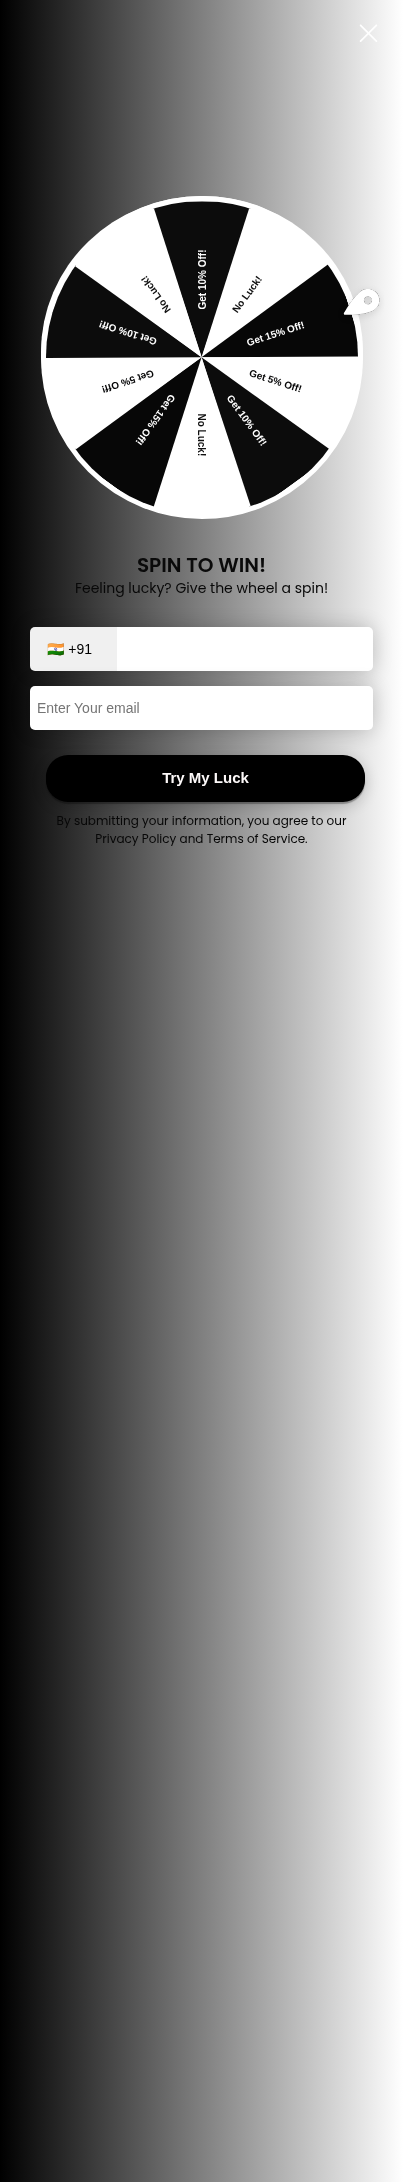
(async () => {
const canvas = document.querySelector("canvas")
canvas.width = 403
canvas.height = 2182
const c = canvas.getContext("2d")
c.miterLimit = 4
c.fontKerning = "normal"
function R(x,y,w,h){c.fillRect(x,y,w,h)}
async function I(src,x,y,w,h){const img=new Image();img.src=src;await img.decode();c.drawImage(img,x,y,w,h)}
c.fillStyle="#fff"
R(0,0,403,2182)
await I("1.png",0,0,403,2182)
})()
